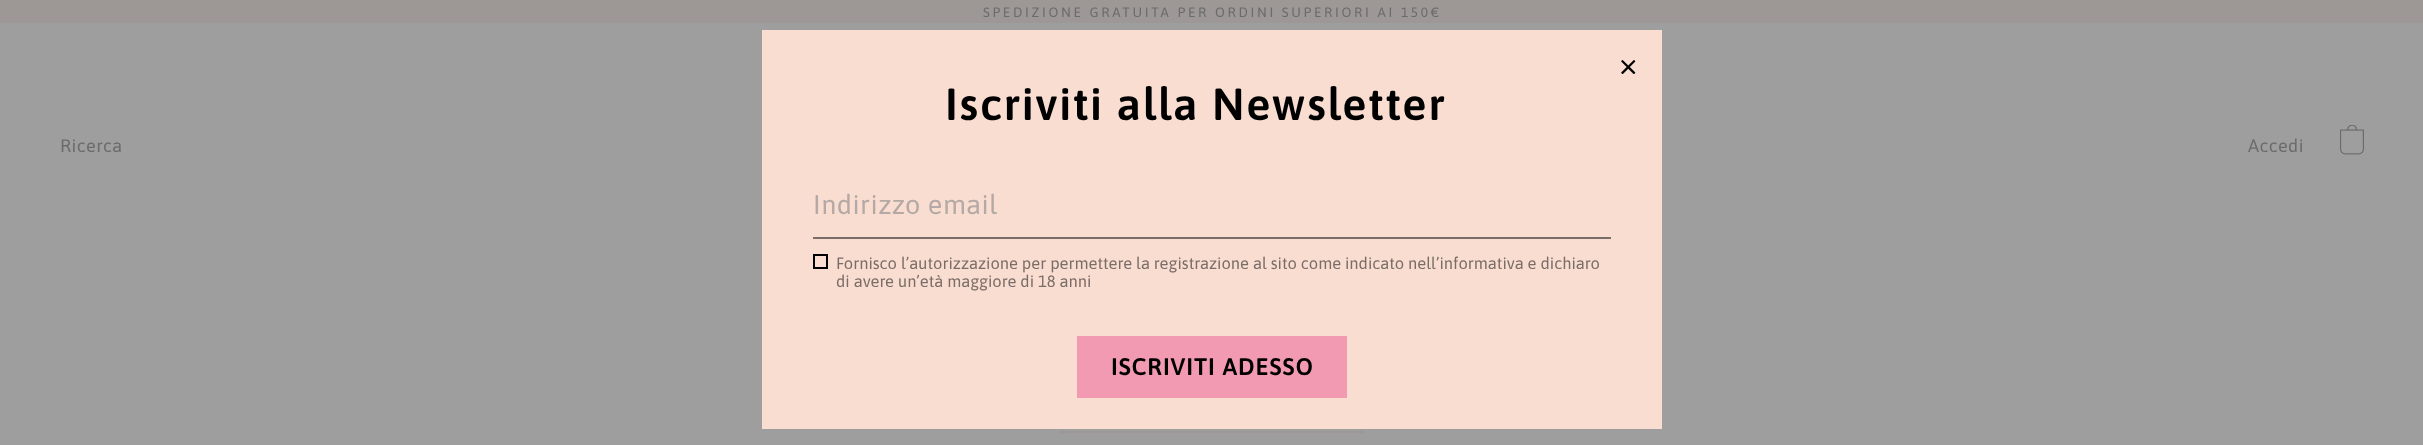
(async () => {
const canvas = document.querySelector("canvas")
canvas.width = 2423
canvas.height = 445
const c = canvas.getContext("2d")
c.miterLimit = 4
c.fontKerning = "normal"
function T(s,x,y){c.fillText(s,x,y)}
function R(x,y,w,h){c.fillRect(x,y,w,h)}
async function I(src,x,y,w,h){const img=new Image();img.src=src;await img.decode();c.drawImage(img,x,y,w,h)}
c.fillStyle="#9e9e9e"
R(0,0,2423,445)
c.fillStyle="#9d9795"
R(0,0,2423,23)
c.letterSpacing="2.7px"
c.font="13.5px Asap"
c.fillStyle="#6b6b6b"
T("SPEDIZIONE GRATUITA PER ORDINI SUPERIORI AI 150€",983,17)
c.letterSpacing="0.5px"
c.font="18px Asap"
T("Ricerca",60,152)
T("Accedi",2248,152)
await I("1.png",2340,125,24,30)
c.fillStyle="#f9ddd1"
R(762,30,900,399)
c.letterSpacing="1.8px"
c.font="33px Asap"
c.fillStyle="#000"
T("×",1619,75)
c.font="600 45px Asap"
T("Iscriviti alla Newsletter",945,120)
c.fillStyle="#7a6d67"
R(813,237,798,2)
c.letterSpacing="0.5px"
c.font="27px Asap"
c.fillStyle="#b4a9a4"
T("Indirizzo email",813,214)
c.strokeStyle="#000"
c.lineWidth=2
c.strokeRect(814,255,13,13)
c.letterSpacing="0px"
c.font="16.5px Asap"
c.fillStyle="#7a6d67"
T("Fornisco l’autorizzazione per permettere la registrazione al sito come indicato nell’informativa e dichiaro",836,269)
T("di avere un’età maggiore di 18 anni",836,287)
c.fillStyle="#f29ab1"
R(1077,336,270,62)
c.letterSpacing="0.9px"
c.font="600 24px Asap"
c.fillStyle="#000"
T("ISCRIVITI ADESSO",1111,375)
c.fillStyle="#9d9795"
R(1059,431,306,2)
})()
